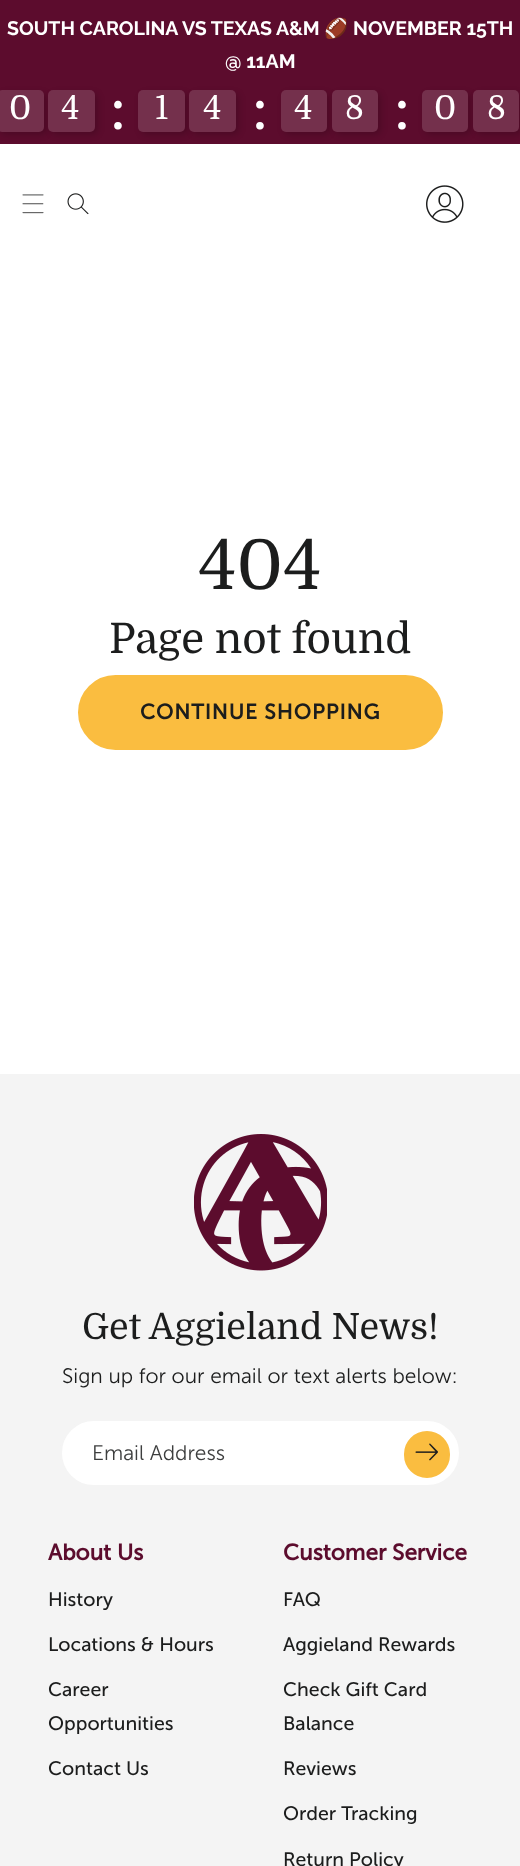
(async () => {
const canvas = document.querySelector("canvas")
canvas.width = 520
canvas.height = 1866
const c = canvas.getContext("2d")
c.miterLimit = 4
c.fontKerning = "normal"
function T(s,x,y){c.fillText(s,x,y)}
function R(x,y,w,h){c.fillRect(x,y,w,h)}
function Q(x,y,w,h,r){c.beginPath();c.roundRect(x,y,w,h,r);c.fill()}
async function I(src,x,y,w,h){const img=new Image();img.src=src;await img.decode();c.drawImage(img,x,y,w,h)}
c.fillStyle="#fff"
R(0,0,520,1866)
c.fillStyle="#5c0c2d"
R(0,0,520,144)
c.font="bold 19.5px Raleway"
c.fillStyle="#fff"
T("SOUTH CAROLINA VS TEXAS A&M",7,35)
c.font="bold 19.5px Noto Color Emoji"
T("🏈",324,35)
c.font="bold 19.5px Raleway"
T("NOVEMBER 15TH",353,35)
T("@ 11AM",225,68)
c.fillStyle="#00000029"
c.filter="blur(3px)"
c.beginPath()
c.roundRect(0,93,47,42,5)
c.fill()
c.filter="none"
c.fillStyle="#74304c"
Q(-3,90,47,42,5)
c.font="33px Domine"
c.fillStyle="#fff"
T("0",9,119)
c.fillStyle="#00000029"
c.filter="blur(3px)"
c.beginPath()
c.roundRect(51,93,47,42,5)
c.fill()
c.filter="none"
c.fillStyle="#74304c"
Q(48,90,47,42,5)
c.fillStyle="#fff"
T("4",61,119)
c.font="60px Domine"
T(":",110,129)
c.fillStyle="#00000029"
c.filter="blur(3px)"
c.beginPath()
c.roundRect(141,93,47,42,5)
c.fill()
c.filter="none"
c.fillStyle="#74304c"
Q(138,90,47,42,5)
c.font="33px Domine"
c.fillStyle="#fff"
T("1",155,119)
c.fillStyle="#00000029"
c.filter="blur(3px)"
c.beginPath()
c.roundRect(192,93,47,42,5)
c.fill()
c.filter="none"
c.fillStyle="#74304c"
Q(189,90,47,42,5)
c.fillStyle="#fff"
T("4",203,119)
c.font="60px Domine"
T(":",252,129)
c.fillStyle="#00000029"
c.filter="blur(3px)"
c.beginPath()
c.roundRect(284,93,46,42,5)
c.fill()
c.filter="none"
c.fillStyle="#74304c"
Q(281,90,46,42,5)
c.font="33px Domine"
c.fillStyle="#fff"
T("4",294,119)
c.fillStyle="#00000029"
c.filter="blur(3px)"
c.beginPath()
c.roundRect(335,93,46,42,5)
c.fill()
c.filter="none"
c.fillStyle="#74304c"
Q(332,90,46,42,5)
c.fillStyle="#fff"
T("8",345,119)
c.font="60px Domine"
T(":",394,129)
c.fillStyle="#00000029"
c.filter="blur(3px)"
c.beginPath()
c.roundRect(425,93,46,42,5)
c.fill()
c.filter="none"
c.fillStyle="#74304c"
Q(422,90,46,42,5)
c.font="33px Domine"
c.fillStyle="#fff"
T("0",434,119)
c.fillStyle="#00000029"
c.filter="blur(3px)"
c.beginPath()
c.roundRect(476,93,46,42,5)
c.fill()
c.filter="none"
c.fillStyle="#74304c"
Q(473,90,46,42,5)
c.fillStyle="#fff"
T("8",487,119)
await I("1.png",22,194,22,20)
c.beginPath()
c.ellipse(66,205,22.5,28,0,0,7)
c.fill()
await I("2.png",67,193,22,22)
await I("3.png",426,185,38,38)
c.font="69px Domine"
c.fillStyle="#1c1d1d"
T("404",198,589)
c.font="42px Domine"
T("Page not found",109,653)
c.fillStyle="#fabd40"
c.beginPath()
c.roundRect(79,676,363,73,36.5)
c.fill()
c.strokeStyle="#fabd40"
c.lineWidth=2
c.stroke()
c.letterSpacing="1px"
c.font="bold 21px Museo Sans"
c.fillStyle="#1c1d1d"
T("CONTINUE SHOPPING",140,719)
c.fillStyle="#f4f4f4"
R(0,1074,520,792)
await I("4.png",194,1134,133,137)
c.letterSpacing="0px"
c.font="36px Domine"
c.fillStyle="#1c1d1d"
T("Get Aggieland News!",82,1339)
c.font="300 21px Museo Sans"
T("Sign up for our email or text alerts below:",62,1383)
c.fillStyle="#fff"
c.beginPath()
c.roundRect(61,1420,399,66,33)
c.fill()
c.strokeStyle="#f4f4f4"
c.stroke()
c.fillStyle="#3d3e3e"
T("Email Address",92,1460)
c.fillStyle="#fabd40"
c.beginPath()
c.roundRect(405,1432,44,45,22)
c.fill()
c.strokeStyle="#fabd40"
c.stroke()
await I("5.png",415,1443,23,18)
c.font="bold 22.5px Museo Sans"
c.fillStyle="#5c0c2d"
T("About Us",48,1560)
c.font="19.5px Museo Sans"
c.fillStyle="#1c1d1d"
T("History",48,1606)
T("Locations & Hours",48,1651)
T("Career",48,1696)
T("Opportunities",48,1730)
T("Contact Us",48,1775)
c.font="bold 22.5px Museo Sans"
c.fillStyle="#5c0c2d"
T("Customer Service",283,1560)
c.font="19.5px Museo Sans"
c.fillStyle="#1c1d1d"
T("FAQ",283,1606)
T("Aggieland Rewards",283,1651)
T("Check Gift Card",283,1696)
T("Balance",283,1730)
T("Reviews",283,1775)
T("Order Tracking",283,1820)
T("Return Policy",283,1866)
})()
